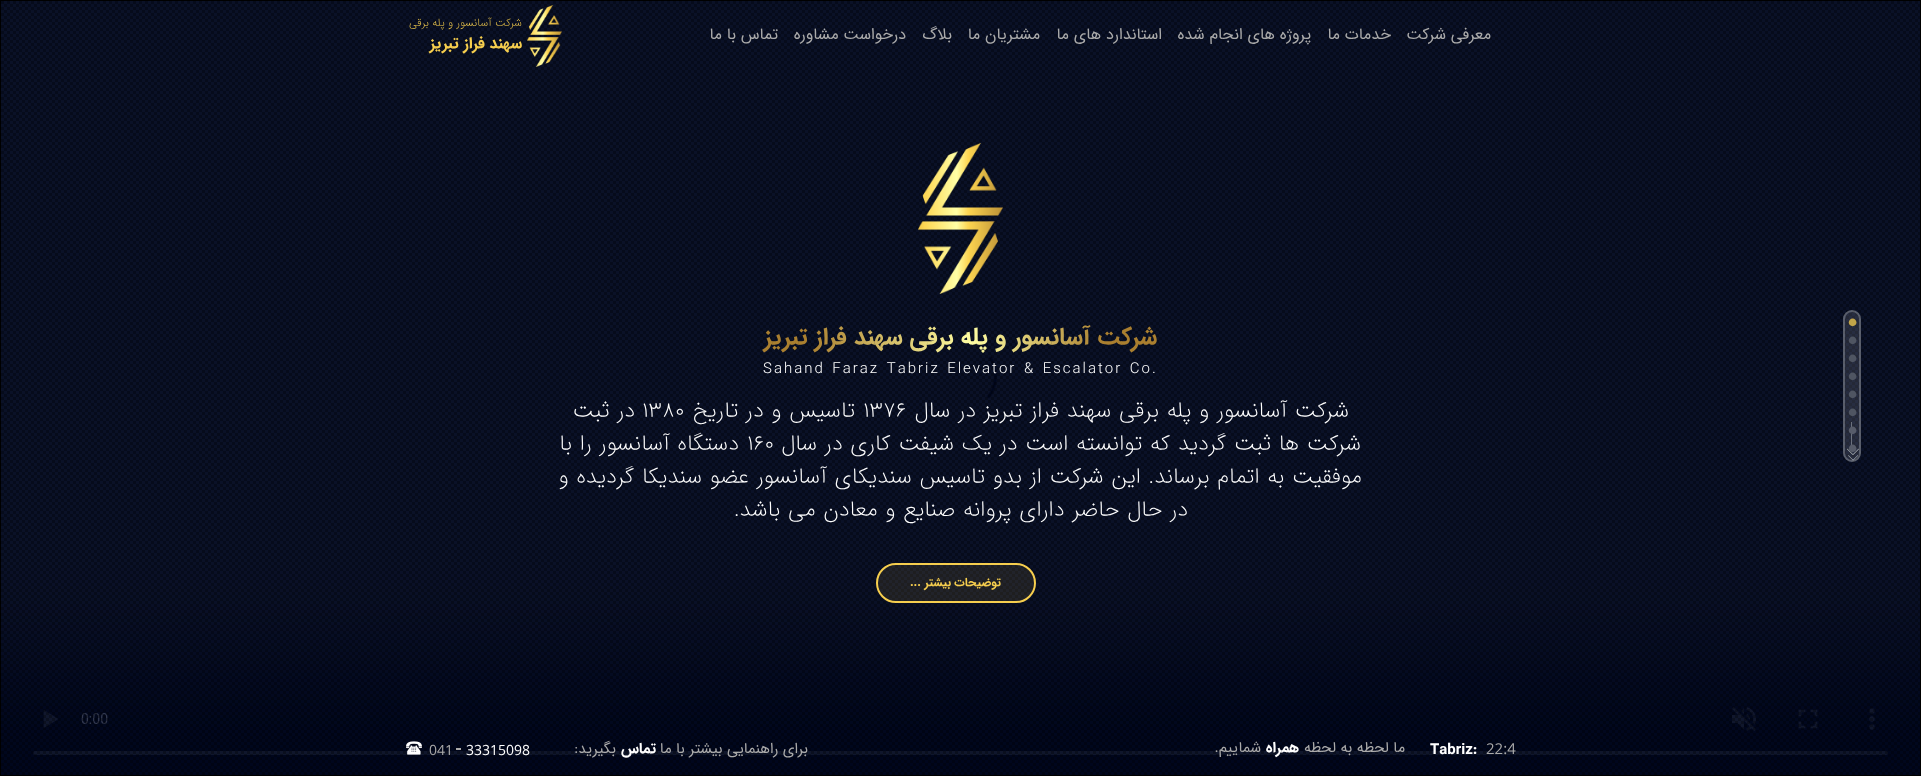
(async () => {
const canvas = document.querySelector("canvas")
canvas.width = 1921
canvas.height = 776
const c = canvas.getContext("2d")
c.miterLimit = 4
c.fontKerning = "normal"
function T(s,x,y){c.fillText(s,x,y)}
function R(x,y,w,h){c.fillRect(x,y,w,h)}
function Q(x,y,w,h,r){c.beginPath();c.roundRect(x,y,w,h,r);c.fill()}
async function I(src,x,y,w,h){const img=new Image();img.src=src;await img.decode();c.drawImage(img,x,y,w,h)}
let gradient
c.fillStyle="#000"
R(0,0,1921,776)
await I("3.png",1,1,1919,774)
await I("4.png",1,1,1919,774)
c.direction="rtl"
c.font="16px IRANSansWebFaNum"
c.fillStyle="#aaa"
T("معرفی شرکت",1491,39)
T("خدمات ما",1391,39)
T("پروژه های انجام شده",1311,39)
T("استاندارد های ما",1162,39)
T("مشتریان ما",1040,39)
T("بلاگ",952,39)
T("درخواست مشاوره",906,39)
T("تماس با ما",778,39)
await I("1.png",527,5,35,62)
c.font="200 11px IRANSansWebFaNum"
c.fillStyle="#f6ce4e"
T("شرکت آسانسور و پله برقی",522,26)
c.font="bold 16px IRANSansWebFaNum"
T("سهند فراز تبریز",522,48)
c.direction="ltr"
c.font="15px Open Sans"
c.fillStyle="#aaa"
T("22:4",1486,754)
c.font="bold 15px IRANSansWebFaNum"
c.fillStyle="#fff"
T("Tabriz:",1430,754)
c.direction="rtl"
c.font="15px IRANSansWebFaNum"
c.fillStyle="#aaa"
T("ما لحظه به لحظه",1405,752)
c.font="bold 15px IRANSansWebFaNum"
c.fillStyle="#fff"
T("همراه",1299,752)
c.font="15px IRANSansWebFaNum"
c.fillStyle="#aaa"
T("شماییم.",1261,752)
T("برای راهنمایی بیشتر با ما",808,753)
c.font="bold 15px IRANSansWebFaNum"
c.fillStyle="#fff"
T("تماس",656,753)
c.font="15px IRANSansWebFaNum"
c.fillStyle="#aaa"
T("بگیرید:",616,753)
c.direction="ltr"
c.font="14px Open Sans"
c.fillStyle="#fff"
T("33315098",466,755)
c.fillStyle="#aaa"
R(456,748,5,2)
T("041",429,755)
await I("2.png",406,741,16,14)
c.fillStyle="#cfd8dc66"
R(1851,422,1,26)
await I("6.png",1847,448,12,7)
await I("7.png",1848,455,10,6)
c.fillStyle="#ffffff1f"
Q(1843,310,18,152,9)
c.beginPath()
c.roundRect(1844,311,16,150,8)
c.strokeStyle="#cfd8dc4d"
c.lineWidth=2
c.stroke()
c.font="32px Liberation Serif"
c.fillStyle="#c2a549"
T("•",1847,333)
c.fillStyle="#4f5562"
T("•",1847,351)
T("•",1847,369)
T("•",1847,387)
T("•",1847,405)
T("•",1847,423)
c.fillStyle="#575c6a"
T("•",1847,441)
T("•",1847,459)
await I("5.png",918,143,85,151)
c.direction="rtl"
c.font="bold 24px IRANSansWebFaNum"
gradient = c.createLinearGradient(451,314,1471,314)
gradient.addColorStop(0,"#aa7f2f")
gradient.addColorStop(.35,"#aa7f2f")
gradient.addColorStop(.51,"#fffea3")
gradient.addColorStop(.64,"#aa7f2f")
gradient.addColorStop(1,"#aa7f2f")
c.fillStyle = gradient
T("شرکت آسانسور و پله برقی سهند فراز تبریز",1157,344)
c.letterSpacing="2px"
c.direction="ltr"
c.font="200 15px IRANSansWebFaNum"
c.fillStyle="#fff"
T(".",1152,373)
c.wordSpacing="1px"
T("Sahand Faraz Tabriz Elevator & Escalator Co",763,373)
c.letterSpacing="0px"
c.direction="rtl"
c.font="200 22px IRANSansWebFaNum"
T("شرکت آسانسور و پله برقی سهند فراز تبریز در سال",1349,417)
c.wordSpacing="0px"
c.direction="ltr"
T("1376",863,417)
c.wordSpacing="1px"
c.direction="rtl"
T("تاسیس و در تاریخ",855,417)
c.wordSpacing="0px"
c.direction="ltr"
T("1380",642,417)
c.wordSpacing="1px"
c.direction="rtl"
T("در ثبت",635,417)
T("شرکت ها ثبت گردید که توانسته است در یک شیفت کاری در سال",1361,450)
c.wordSpacing="0px"
c.direction="ltr"
T("160",747,450)
c.wordSpacing="1px"
c.direction="rtl"
T("دستگاه آسانسور را با",739,450)
T("موفقیت به اتمام برساند. این شرکت از بدو تاسیس سندیکای آسانسور عضو سندیکا گردیده و",1362,483)
T("در حال حاضر دارای پروانه صنایع و معادن می باشد.",1188,516)
c.fillStyle="#f6ce4e1a"
c.beginPath()
c.roundRect(877,564,158,38,19)
c.fill()
c.strokeStyle="#f6ce4e"
c.stroke()
c.wordSpacing="0px"
c.font="bold 12px IRANSansWebFaNum"
c.fillStyle="#f6ce4e"
T("توضیحات",1001,586)
T("بیشتر ...",951,586)
})()
